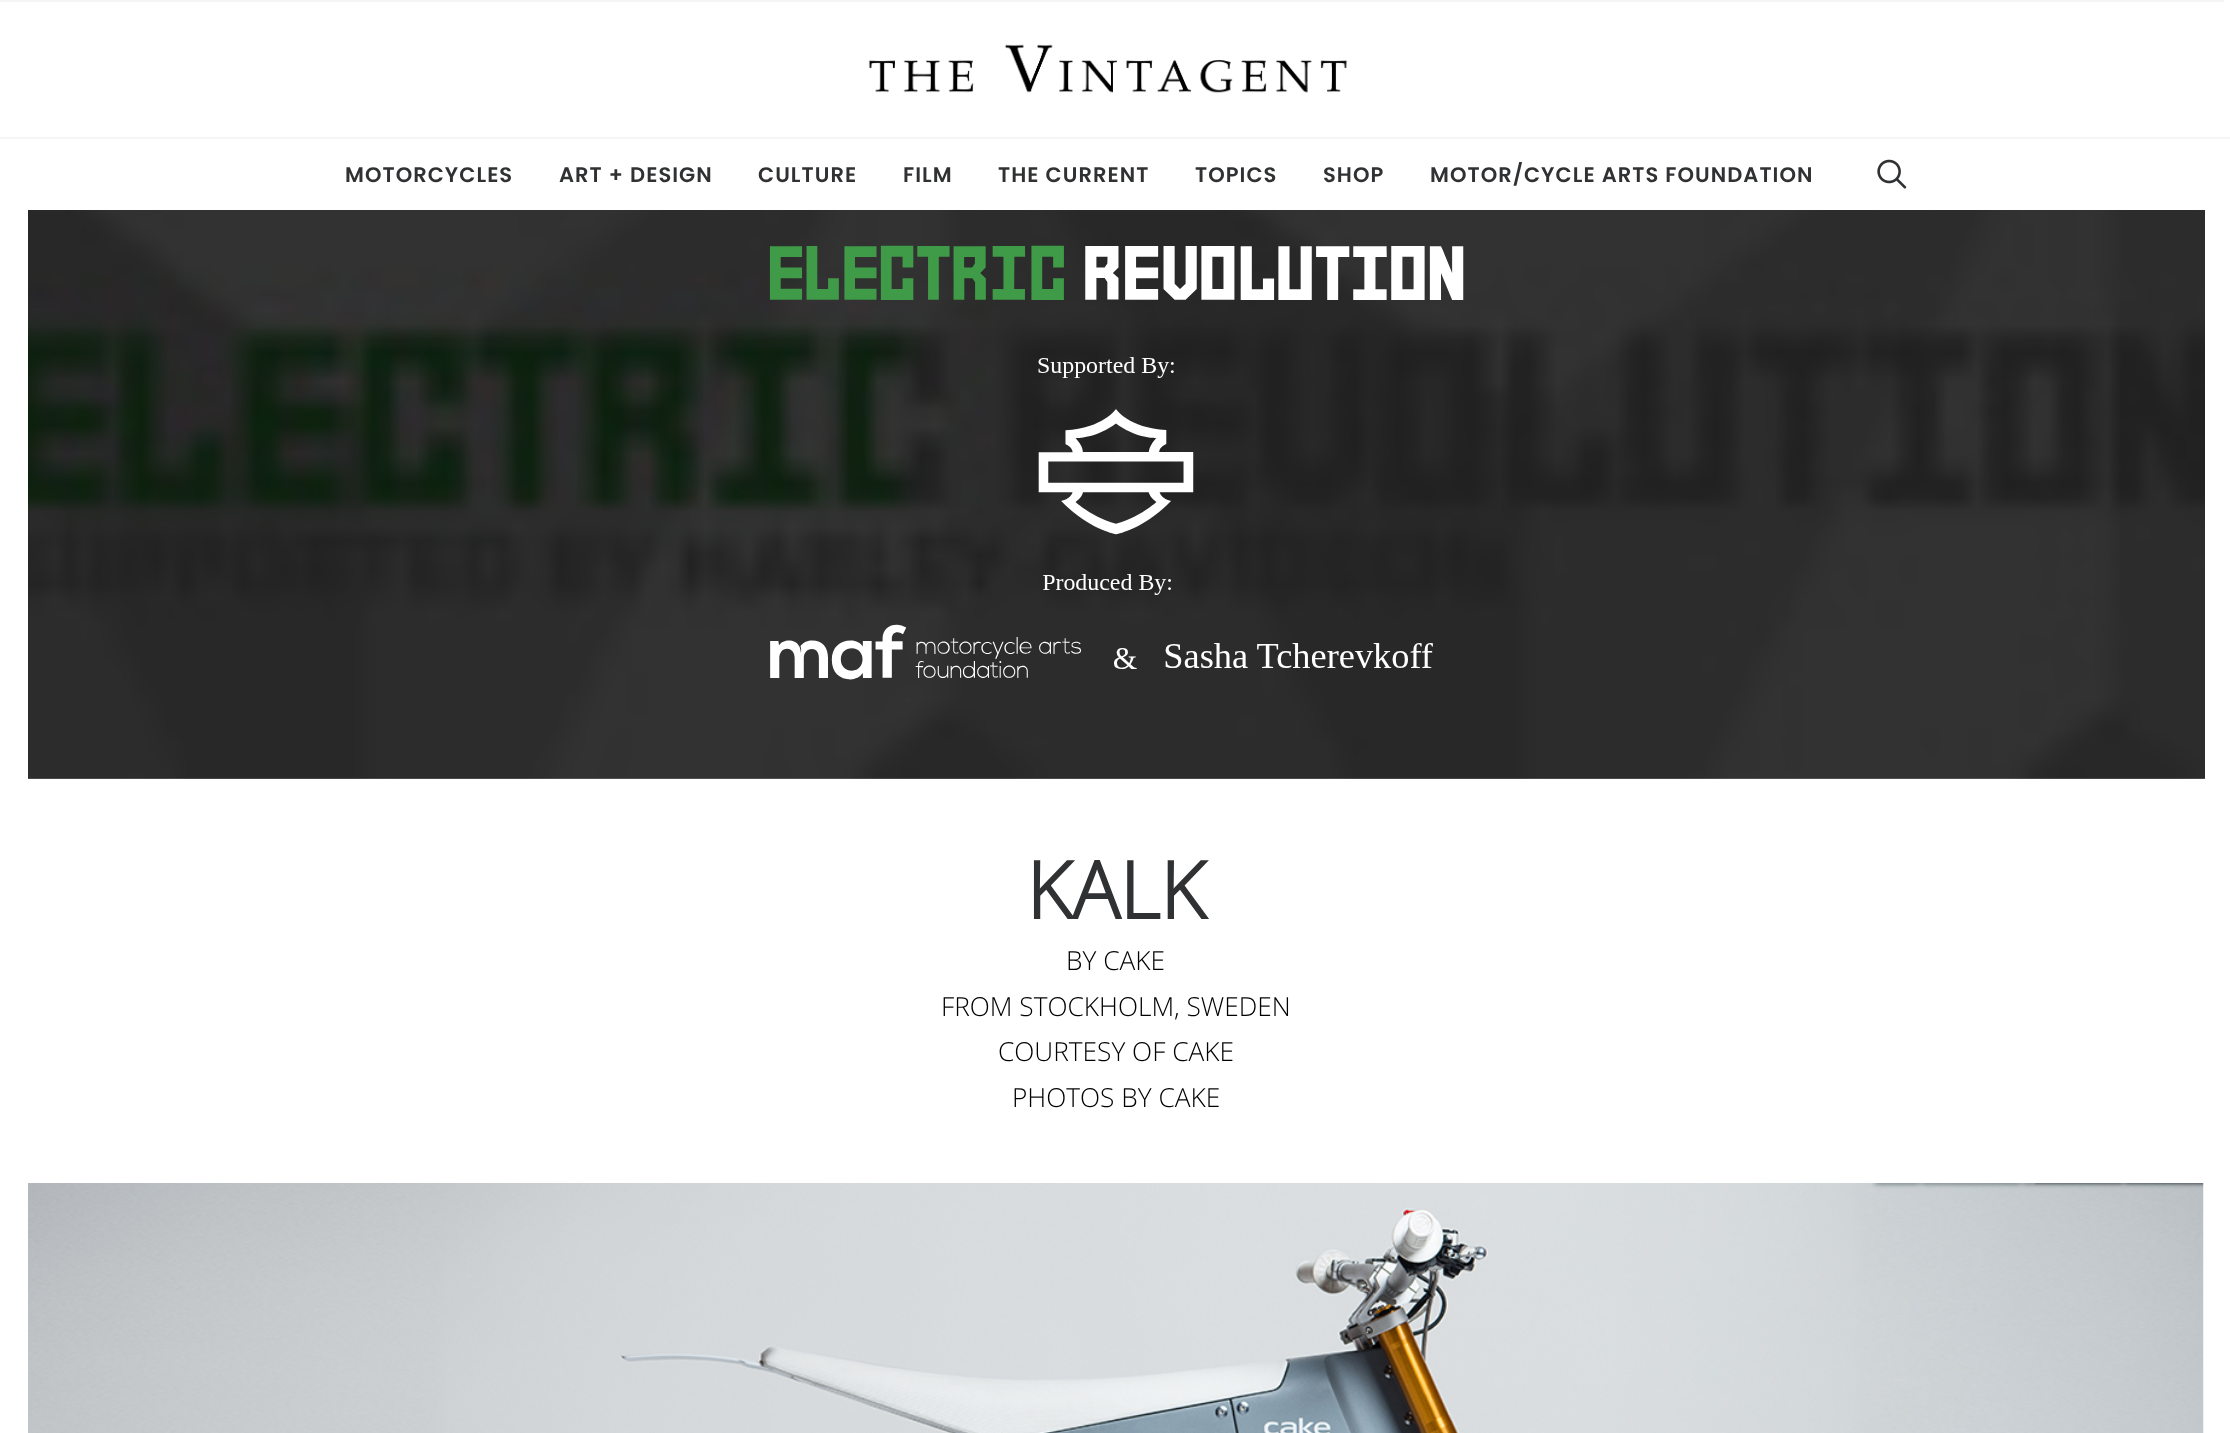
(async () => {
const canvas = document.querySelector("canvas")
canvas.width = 2230
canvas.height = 1433
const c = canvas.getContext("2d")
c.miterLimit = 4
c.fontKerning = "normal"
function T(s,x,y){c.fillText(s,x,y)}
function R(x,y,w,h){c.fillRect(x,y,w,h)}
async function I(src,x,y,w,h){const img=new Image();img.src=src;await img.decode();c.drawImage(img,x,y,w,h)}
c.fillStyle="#fff"
R(0,0,2230,1433)
c.fillStyle="#f5f5f5"
R(0,0,2224,2)
await I("1.png",868,44,479,49)
R(0,137,2230,2)
c.letterSpacing="1.05px"
c.font="600 21px Poppins"
c.fillStyle="#303133"
T("MOTORCYCLES",345,182)
T("ART + DESIGN",559,182)
T("CULTURE",758,182)
T("FILM",903,182)
T("THE CURRENT",998,182)
T("TOPICS",1195,182)
T("SHOP",1323,182)
T("MOTOR/CYCLE ARTS FOUNDATION",1430,182)
await I("2.png",1877,159,30,30)
await I("4.png",28,778,2177,1)
await I("3.png",28,210,2177,569)
await I("5.png",769,245,695,435)
c.letterSpacing="0px"
c.font="bold 79px Open Sans"
T("KALK",1026,919)
c.font="300 26.25px Open Sans"
c.fillStyle="#000"
T("BY CAKE",1066,970)
T("FROM STOCKHOLM, SWEDEN",941,1016)
T("COURTESY OF CAKE",998,1061)
T("PHOTOS BY CAKE",1012,1107)
await I("6.png",28,1183,2176,250)
})()
